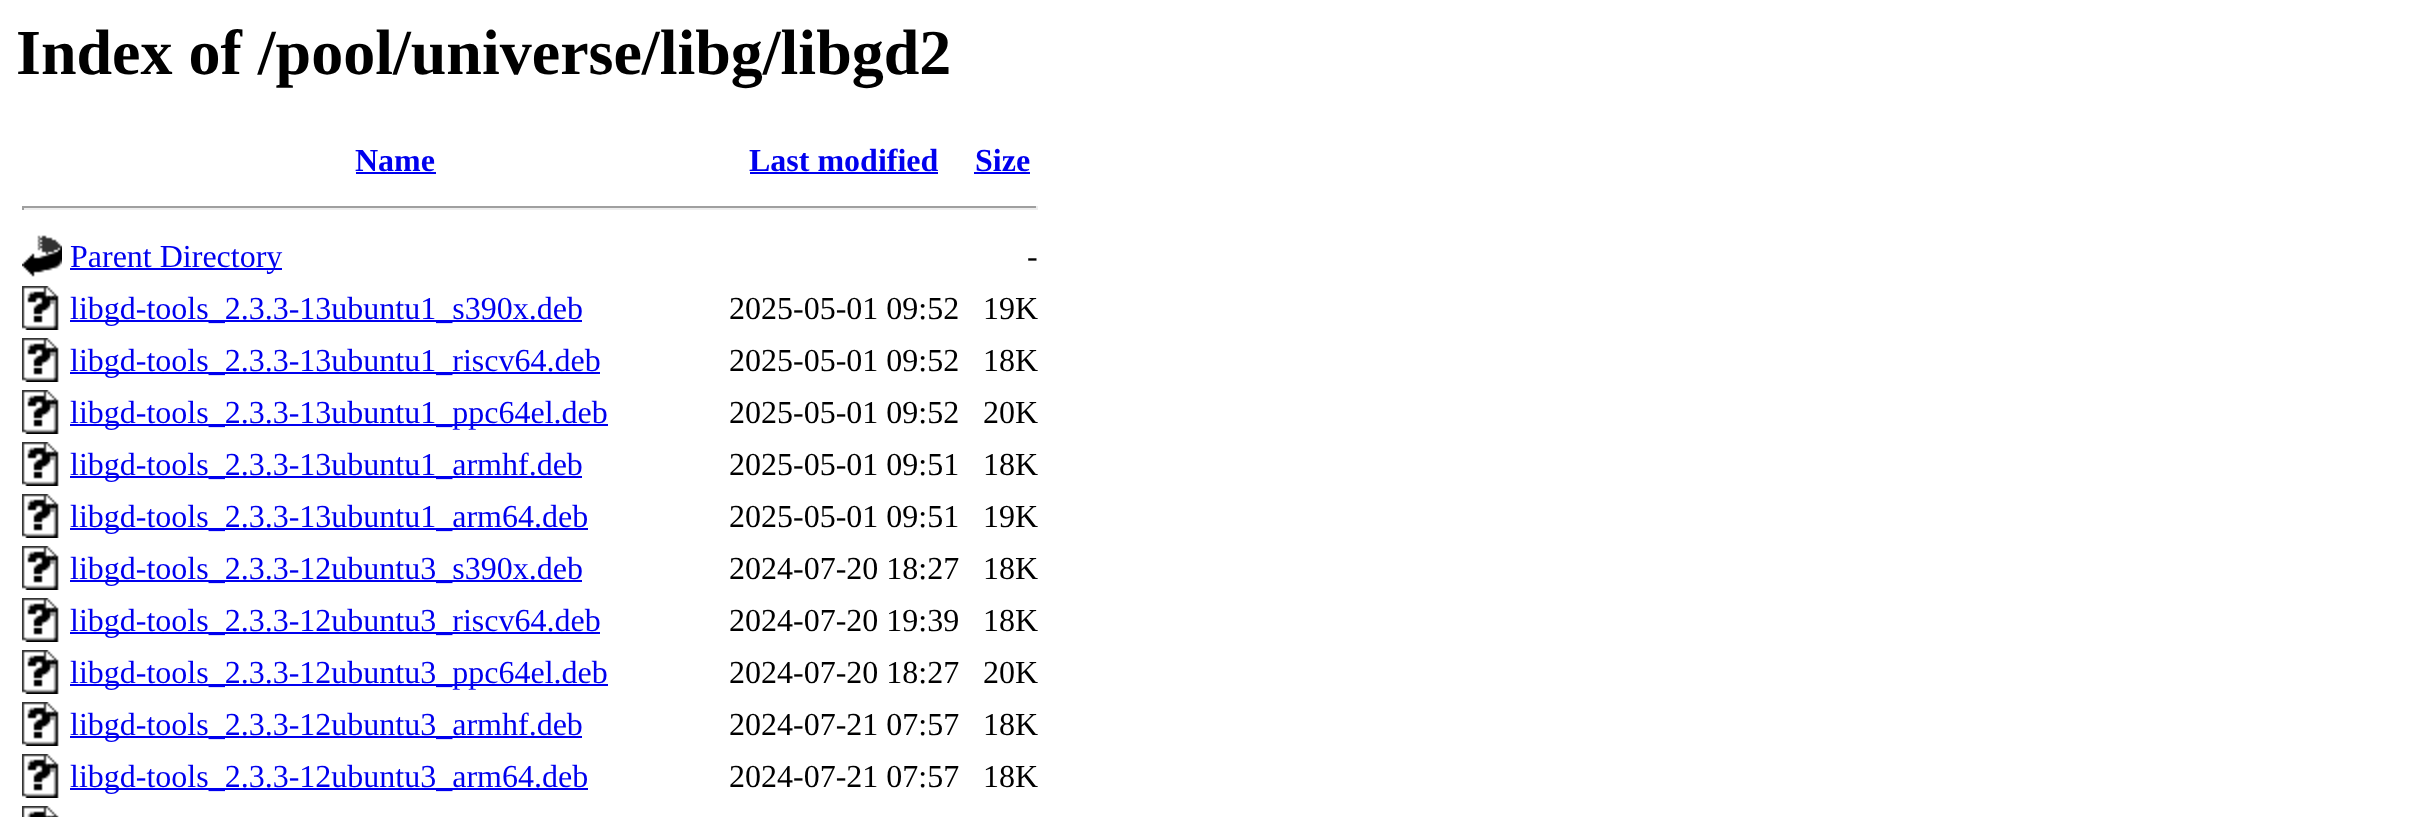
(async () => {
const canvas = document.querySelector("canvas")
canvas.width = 2425
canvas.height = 817
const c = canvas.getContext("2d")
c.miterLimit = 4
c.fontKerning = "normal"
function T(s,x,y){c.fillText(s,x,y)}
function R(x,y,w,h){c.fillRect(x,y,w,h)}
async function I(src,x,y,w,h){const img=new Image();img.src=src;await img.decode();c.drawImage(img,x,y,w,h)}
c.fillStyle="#fff"
R(0,0,2425,817)
c.font="bold 64px Liberation Serif"
c.fillStyle="#000"
T("Index of /pool/universe/libg/libgd2",16,74)
c.font="bold 32px Liberation Serif"
c.fillStyle="#00e"
T("Name",355,171)
R(356,172,80,2)
T("Last modified",749,171)
R(750,172,188,2)
T("Size",975,171)
R(974,172,56,2)
c.fillStyle="#9f9f9f"
R(22,206,1016,2)
c.fillStyle="#eee"
R(1036,206,2,4)
R(22,208,1016,2)
c.fillStyle="#9f9f9f"
R(22,206,2,4)
await I("1.png",22,235,40,42)
c.fillStyle="#00e"
R(70,268,212,2)
c.font="32px Liberation Serif"
T("Parent Directory",70,267)
c.fillStyle="#000"
T("-",1027,267)
await I("2.png",22,286,37,44)
c.fillStyle="#00e"
R(70,320,512,2)
T("libgd-tools_2.3.3-13ubuntu1_s390x.deb",70,319)
c.fillStyle="#000"
T("2025-05-01 09:52",729,319)
T("19K",983,319)
await I("2.png",22,338,37,44)
c.fillStyle="#00e"
R(70,372,530,2)
T("libgd-tools_2.3.3-13ubuntu1_riscv64.deb",70,371)
c.fillStyle="#000"
T("2025-05-01 09:52",729,371)
T("18K",983,371)
await I("2.png",22,390,37,44)
c.fillStyle="#00e"
R(70,424,538,2)
T("libgd-tools_2.3.3-13ubuntu1_ppc64el.deb",70,423)
c.fillStyle="#000"
T("2025-05-01 09:52",729,423)
T("20K",983,423)
await I("2.png",22,442,37,44)
c.fillStyle="#00e"
R(70,476,512,2)
T("libgd-tools_2.3.3-13ubuntu1_armhf.deb",70,475)
c.fillStyle="#000"
T("2025-05-01 09:51",729,475)
T("18K",983,475)
await I("2.png",22,494,37,44)
c.fillStyle="#00e"
R(70,528,518,2)
T("libgd-tools_2.3.3-13ubuntu1_arm64.deb",70,527)
c.fillStyle="#000"
T("2025-05-01 09:51",729,527)
T("19K",983,527)
await I("2.png",22,546,37,44)
c.fillStyle="#00e"
R(70,580,512,2)
T("libgd-tools_2.3.3-12ubuntu3_s390x.deb",70,579)
c.fillStyle="#000"
T("2024-07-20 18:27",729,579)
T("18K",983,579)
await I("2.png",22,598,37,44)
c.fillStyle="#00e"
R(70,632,530,2)
T("libgd-tools_2.3.3-12ubuntu3_riscv64.deb",70,631)
c.fillStyle="#000"
T("2024-07-20 19:39",729,631)
T("18K",983,631)
await I("2.png",22,650,37,44)
c.fillStyle="#00e"
R(70,684,538,2)
T("libgd-tools_2.3.3-12ubuntu3_ppc64el.deb",70,683)
c.fillStyle="#000"
T("2024-07-20 18:27",729,683)
T("20K",983,683)
await I("2.png",22,702,37,44)
c.fillStyle="#00e"
R(70,736,512,2)
T("libgd-tools_2.3.3-12ubuntu3_armhf.deb",70,735)
c.fillStyle="#000"
T("2024-07-21 07:57",729,735)
T("18K",983,735)
await I("2.png",22,754,37,44)
c.fillStyle="#00e"
R(70,788,518,2)
T("libgd-tools_2.3.3-12ubuntu3_arm64.deb",70,787)
c.fillStyle="#000"
T("2024-07-21 07:57",729,787)
T("18K",983,787)
await I("3.png",22,806,37,11)
})()
